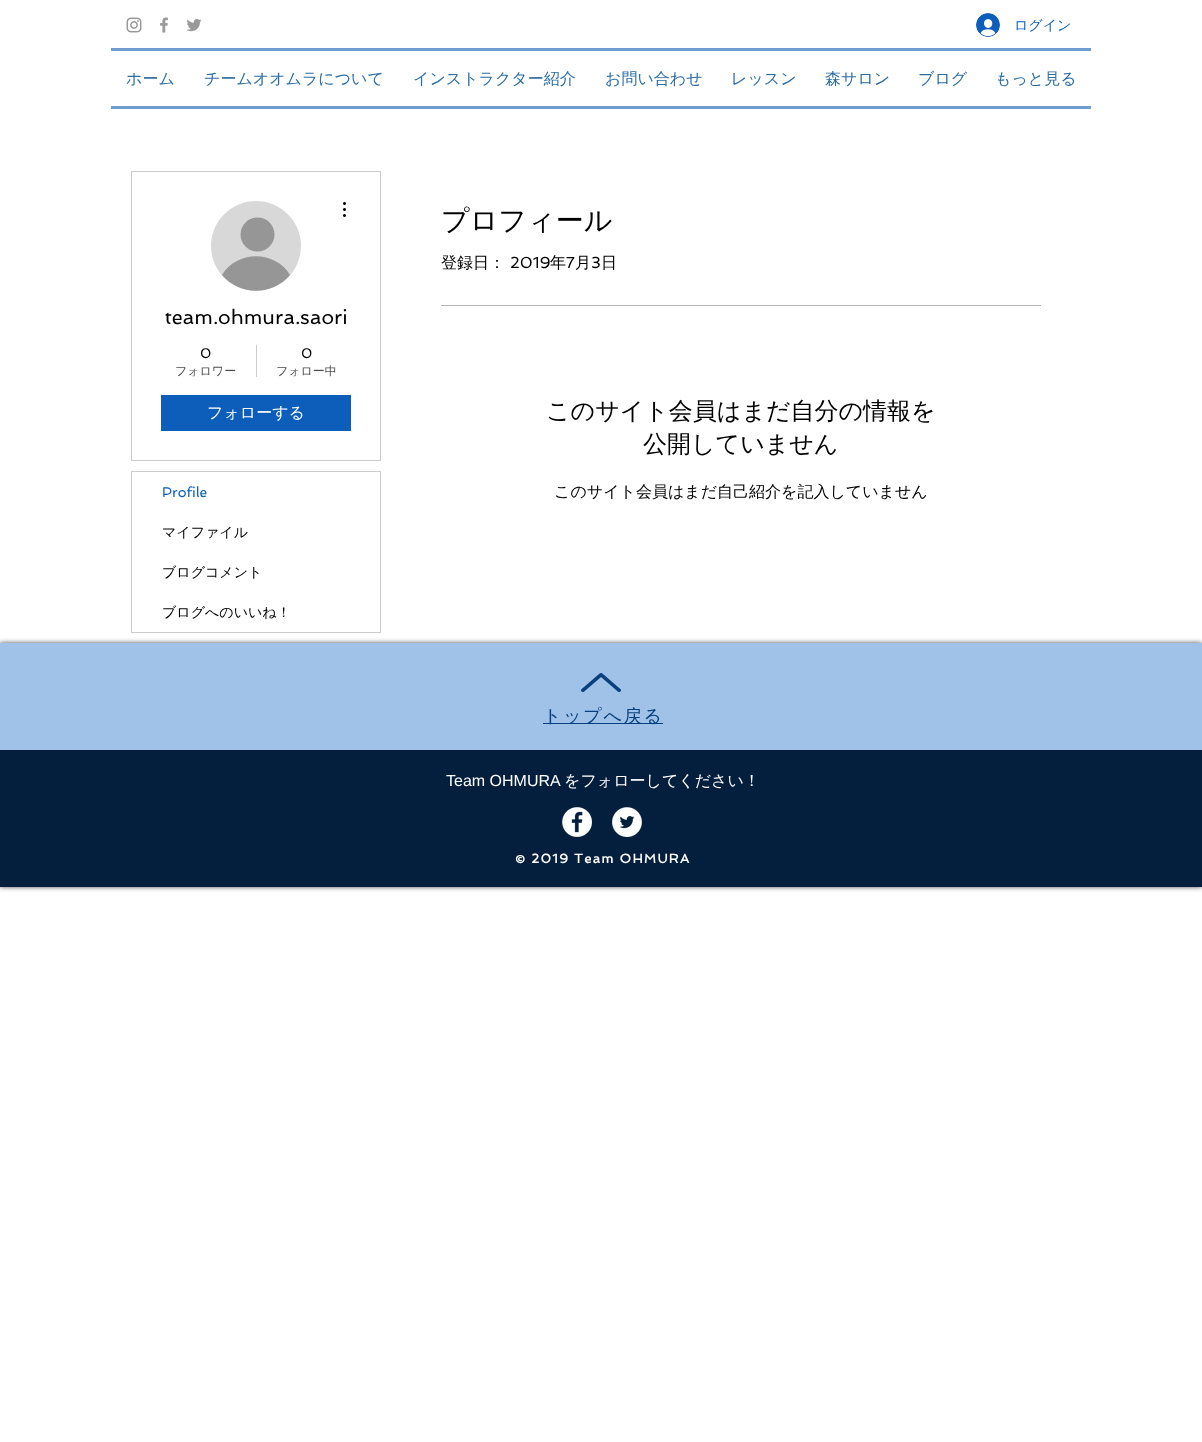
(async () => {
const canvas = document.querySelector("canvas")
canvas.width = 1202
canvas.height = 1442
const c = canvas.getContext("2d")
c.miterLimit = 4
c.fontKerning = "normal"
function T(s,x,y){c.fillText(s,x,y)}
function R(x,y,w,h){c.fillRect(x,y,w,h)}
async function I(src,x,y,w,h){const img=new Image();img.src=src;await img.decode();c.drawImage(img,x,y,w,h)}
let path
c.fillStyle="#fff"
R(0,0,1202,1442)
await I("1.png",126,17,16,16)
await I("2.png",160,17,8,16)
await I("3.png",186,18,16,14)
await I("4.png",976,13,24,24)
c.font="500 14px WenQuanYi Zen Hei"
c.fillStyle="#0d5eba"
T("ログイン",1014,30)
c.fillStyle="#709dd1"
R(111,48,980,3)
R(111,106,980,3)
c.font="500 16px WenQuanYi Zen Hei"
c.fillStyle="#2b6ca3"
T("ホーム",126,84)
T("チームオオムラについて",204,84)
T("インストラクター紹介",413,84)
T("お問い合わせ",605,84)
T("レッスン",731,84)
T("森サロン",825,84)
T("ブログ",918,84)
T("もっと見る",995,84)
c.strokeStyle="#ccc"
c.strokeRect(131.5,171.5,249,289)
c.fillStyle="#d8d8d8"
c.beginPath()
c.arc(256,246,45,0,7)
c.fill()
c.fillStyle="#969696"
c.beginPath()
c.arc(257.5,234.5,17,0,7)
c.fill()
path = new Path2D("M290 275c-18 21-50 21-68 0c15-25 53-25 68 0z")
c.fill(path)
await I("5.png",343,202,3,15)
c.font="20px Spinnaker"
c.fillStyle="#000"
T("team.ohmura.saori",165,324)
c.font="14px Spinnaker"
T("0",200,358)
c.font="500 12px WenQuanYi Zen Hei"
c.fillStyle="#4d4d4d"
T("フォロワー",175,375)
c.fillStyle="#ccc"
R(256,345,1,32)
c.font="14px Spinnaker"
c.fillStyle="#000"
T("0",301,358)
c.font="500 12px WenQuanYi Zen Hei"
c.fillStyle="#4d4d4d"
T("フォロー中",276,375)
c.fillStyle="#0d5eba"
R(161,395,190,36)
c.font="500 16px WenQuanYi Zen Hei"
c.fillStyle="#fff"
T("フォローする",207,418)
c.strokeRect(131.5,471.5,249,161)
c.font="14px Spinnaker"
c.fillStyle="#0d5eba"
T("Profile",162,497)
c.font="500 14px WenQuanYi Zen Hei"
c.fillStyle="#000"
T("マイファイル",162,537)
T("ブログコメント",162,577)
T("ブログへのいいね！",162,617)
c.font="500 28px WenQuanYi Zen Hei"
T("プロフィール",441,230)
c.font="500 16px WenQuanYi Zen Hei"
T("登録日：",441,268)
c.font="16px Spinnaker"
T("2019",510,268)
c.font="500 16px WenQuanYi Zen Hei"
T("年",550,268)
c.font="16px Spinnaker"
T("7",566,268)
c.font="500 16px WenQuanYi Zen Hei"
T("月",575,268)
c.font="16px Spinnaker"
T("3",591,268)
c.font="500 16px WenQuanYi Zen Hei"
T("日",601,268)
c.fillStyle="#b3b3b3"
R(441,305,600,1)
c.font="500 24px WenQuanYi Zen Hei"
c.fillStyle="#000"
T("このサイト会員はまだ自分の情報を",546,419)
T("公開していません",643,452)
c.font="500 16px WenQuanYi Zen Hei"
T("このサイト会員はまだ自己紹介を記入していません",554,497)
c.fillStyle="#000000b3"
c.filter="blur(2.5px)"
c.beginPath()
c.rect(0,643,1202,244)
c.fill()
c.filter="none"
c.fillStyle="#a0c2e8"
R(0,643,1202,107)
await I("6.png",581,673,40,19)
c.fillStyle="#093f7c"
R(543,723,120,1)
c.letterSpacing="1.75px"
c.font="500 18px WenQuanYi Zen Hei"
T("トップへ戻る",543,722)
c.fillStyle="#041f3e"
R(0,750,1202,137)
c.letterSpacing="0px"
c.font="16px Liberation Sans"
c.fillStyle="#fff"
T("Team OHMURA",446,786)
c.font="500 16px WenQuanYi Zen Hei"
T("をフォローしてください！",564,786)
await I("7.png",562,807,30,30)
await I("8.png",612,807,30,30)
c.letterSpacing="1.25px"
c.font="bold 13px Spinnaker"
T("© 2019 Team OHMURA",515,863)
})()
